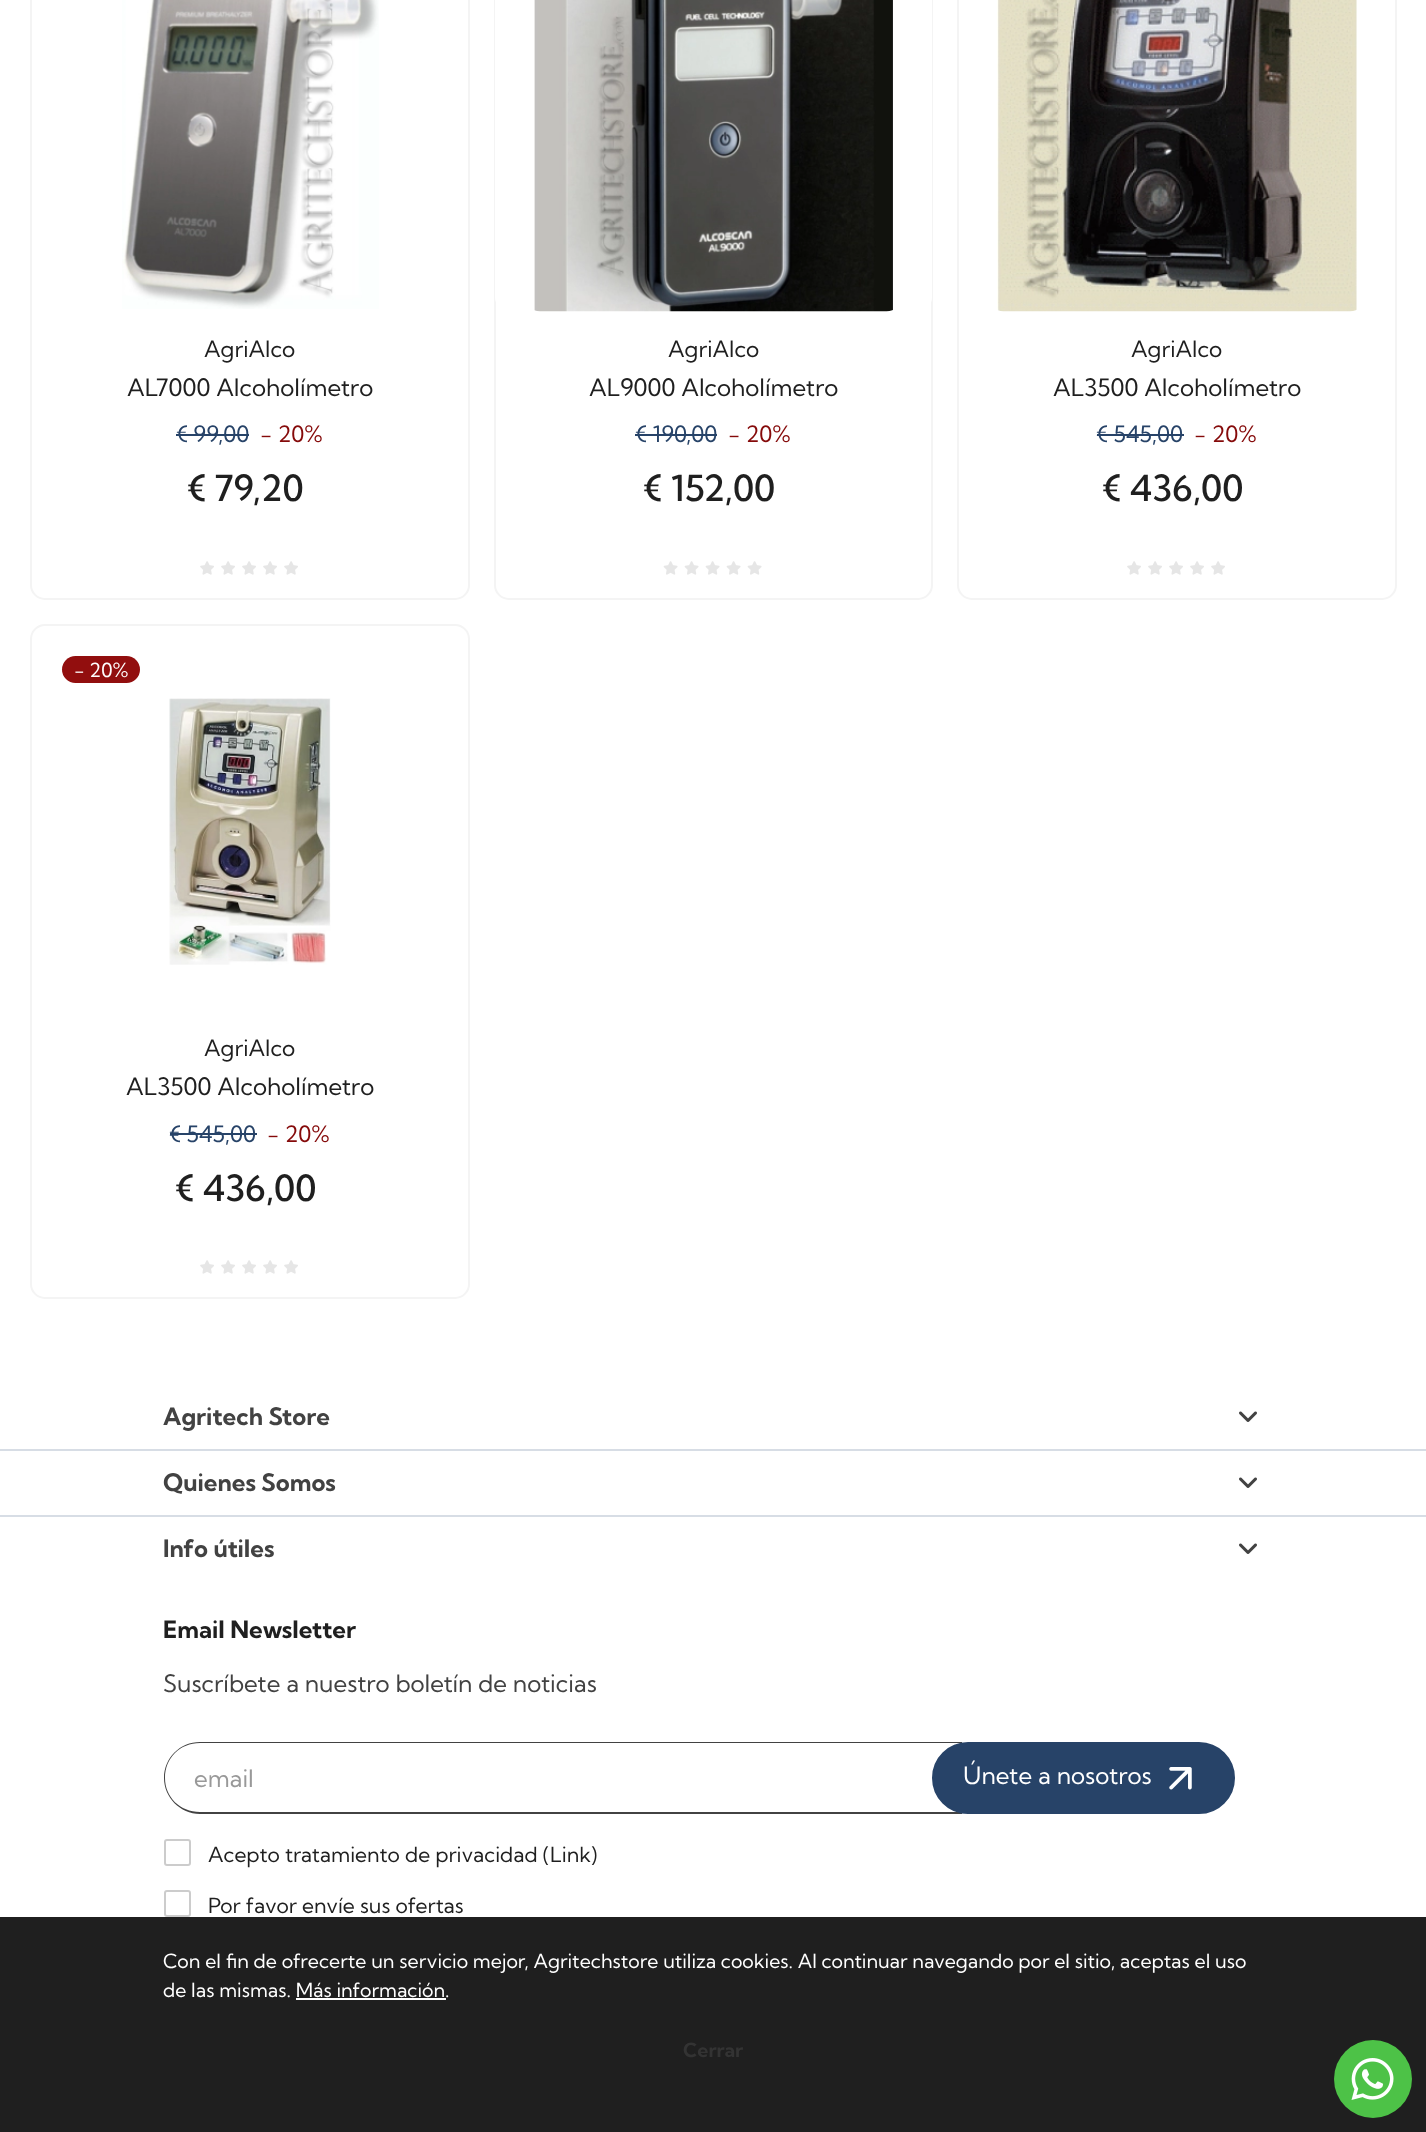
(async () => {
const canvas = document.querySelector("canvas")
canvas.width = 1426
canvas.height = 2132
const c = canvas.getContext("2d")
c.miterLimit = 4
c.fontKerning = "normal"
function T(s,x,y){c.fillText(s,x,y)}
function R(x,y,w,h){c.fillRect(x,y,w,h)}
function Q(x,y,w,h,r){c.beginPath();c.roundRect(x,y,w,h,r);c.fill()}
async function I(src,x,y,w,h){const img=new Image();img.src=src;await img.decode();c.drawImage(img,x,y,w,h)}
let path
c.fillStyle="#fff"
R(0,0,1426,2132)
c.beginPath()
c.roundRect(31,-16,438,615,14)
c.strokeStyle="#f4f4f4"
c.lineWidth=2
c.stroke()
await I("1.png",122,0,257,309)
c.font="22.5px Kumbh Sans"
c.fillStyle="#1f1f1f"
T("AgriAlco",204,357)
c.font="24px Kumbh Sans"
T("AL7000 Alcoholímetro",127,396)
c.font="22.5px Kumbh Sans"
c.fillStyle="#274368"
T("€ 99,00",176,442)
R(176,434,73,2)
c.fillStyle="#850a0a"
T("- 20%",260,442)
c.font="500 36px Kumbh Sans"
c.fillStyle="#1f1f1f"
T("€ 79,20",187,501)
await I("2.png",200,561,14,14)
await I("2.png",221,561,14,14)
await I("2.png",242,561,14,14)
await I("2.png",263,561,14,14)
await I("2.png",284,561,14,14)
c.beginPath()
c.roundRect(495,-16,437,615,14)
c.stroke()
c.fillStyle="#fff"
Q(495,-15,437,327,15)
await I("3.png",534,0,359,312)
c.font="22.5px Kumbh Sans"
c.fillStyle="#1f1f1f"
T("AgriAlco",668,357)
c.font="24px Kumbh Sans"
T("AL9000 Alcoholímetro",589,396)
c.font="22.5px Kumbh Sans"
c.fillStyle="#274368"
T("€ 190,00",635,442)
R(635,434,82,2)
c.fillStyle="#850a0a"
T("- 20%",728,442)
c.font="500 36px Kumbh Sans"
c.fillStyle="#1f1f1f"
T("€ 152,00",643,501)
await I("4.png",663,561,15,14)
await I("4.png",684,561,15,14)
await I("4.png",705,561,15,14)
await I("4.png",726,561,15,14)
await I("4.png",747,561,15,14)
c.beginPath()
c.roundRect(958,-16,438,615,14)
c.stroke()
await I("5.png",997,0,360,312)
c.font="22.5px Kumbh Sans"
T("AgriAlco",1131,357)
c.font="24px Kumbh Sans"
T("AL3500 Alcoholímetro",1053,396)
c.font="22.5px Kumbh Sans"
c.fillStyle="#274368"
T("€ 545,00",1096,442)
R(1097,434,87,2)
c.fillStyle="#850a0a"
T("- 20%",1194,442)
c.font="500 36px Kumbh Sans"
c.fillStyle="#1f1f1f"
T("€ 436,00",1102,501)
await I("2.png",1127,561,14,14)
await I("2.png",1148,561,14,14)
await I("2.png",1169,561,14,14)
await I("2.png",1190,561,14,14)
await I("2.png",1211,561,14,14)
c.beginPath()
c.roundRect(31,625,438,673,14)
c.stroke()
c.fillStyle="#920e0e"
Q(62,656,78,27,13.5)
c.font="19.5px Kumbh Sans"
c.fillStyle="#fff"
T("- 20%",74,677)
await I("6.png",169,698,162,267)
c.font="22.5px Kumbh Sans"
c.fillStyle="#1f1f1f"
T("AgriAlco",204,1056)
c.font="24px Kumbh Sans"
T("AL3500 Alcoholímetro",126,1095)
c.font="22.5px Kumbh Sans"
c.fillStyle="#274368"
T("€ 545,00",169,1142)
R(170,1133,87,2)
c.fillStyle="#850a0a"
T("- 20%",267,1142)
c.font="500 36px Kumbh Sans"
c.fillStyle="#1f1f1f"
T("€ 436,00",175,1201)
await I("2.png",200,1260,14,14)
await I("2.png",221,1260,14,14)
await I("2.png",242,1260,14,14)
await I("2.png",263,1260,14,14)
await I("2.png",284,1260,14,14)
c.font="bold 24px Kumbh Sans"
c.fillStyle="#424242"
T("Agritech Store",163,1425)
await I("7.png",1239,1411,18,11)
c.fillStyle="#d7dde5"
R(0,1449,1426,2)
c.fillStyle="#424242"
T("Quienes Somos",163,1491)
await I("7.png",1239,1477,18,11)
c.fillStyle="#d7dde5"
R(0,1515,1426,2)
c.fillStyle="#424242"
T("Info útiles",163,1557)
await I("7.png",1239,1543,18,11)
c.fillStyle="#1f1f1f"
T("Email Newsletter",163,1638)
c.font="24px Kumbh Sans"
c.fillStyle="#424242"
T("Suscríbete a nuestro boletín de noticias",163,1692)
path = new Path2D("M200 1742h762v72h-762c-20 0-36-17-36-36c0-20 16-36 36-36zm0 1h762v69h-762c-20 0-35-15-35-34c0-20 15-35 35-35z")
c.fill(path,"evenodd")
c.fillStyle="#999"
T("email",194,1787)
c.fillStyle="#274368"
c.beginPath()
c.roundRect(933,1743,301,70,35)
c.fill()
c.strokeStyle="#274368"
c.stroke()
c.fillStyle="#fff"
T("Únete a nosotros",963,1784)
await I("8.png",1169,1767,23,23)
c.beginPath()
c.roundRect(165,1840,25,25,2)
c.strokeStyle="#ccc"
c.stroke()
c.font="21px Kumbh Sans"
c.fillStyle="#1f1f1f"
T("Acepto tratamiento de privacidad (",208,1862)
T("Link)",550,1862)
c.beginPath()
c.roundRect(165,1891,25,25,2)
c.stroke()
T("Por favor envíe sus ofertas",208,1913)
R(0,1917,1426,215)
c.font="19.5px Kumbh Sans"
c.fillStyle="#fff"
T("Con el fin de ofrecerte un servicio mejor, Agritechstore utiliza cookies. Al continuar navegando por el sitio, aceptas el uso",163,1968)
T("de las mismas. Más información.",163,1997)
R(296,1998,150,2)
c.font="bold 19.5px Kumbh Sans"
c.fillStyle="#333"
T("Cerrar",683,2057)
c.fillStyle="#4dc247"
c.beginPath()
c.arc(1373,2079,39,0,7)
c.fill()
await I("9.png",1351,2058,43,42)
})()
